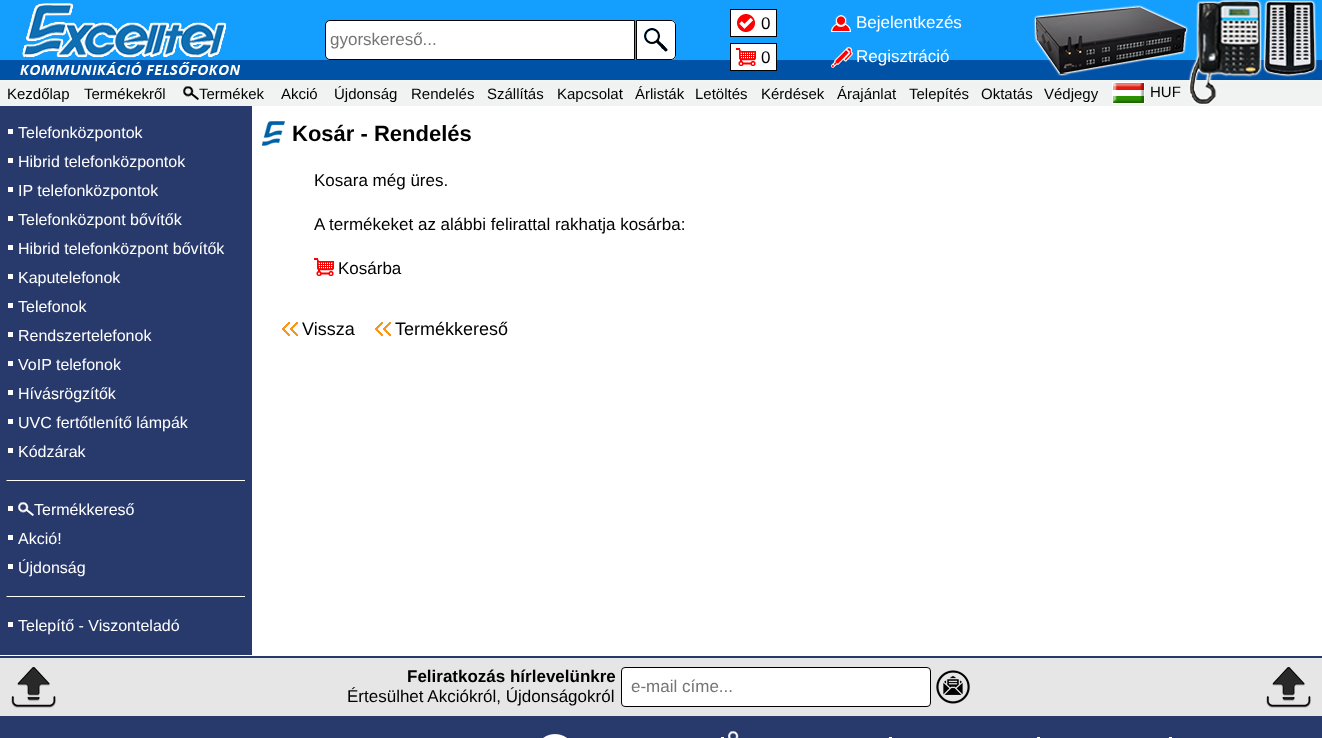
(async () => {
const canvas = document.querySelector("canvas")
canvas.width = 1322
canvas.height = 738
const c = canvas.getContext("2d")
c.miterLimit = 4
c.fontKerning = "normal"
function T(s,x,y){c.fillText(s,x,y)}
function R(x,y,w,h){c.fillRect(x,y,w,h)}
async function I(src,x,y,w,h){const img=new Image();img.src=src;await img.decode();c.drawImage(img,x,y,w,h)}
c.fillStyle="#fff"
R(0,0,1322,738)
await I("1.png",0,0,1322,106)
await I("2.png",20,3,220,73)
c.beginPath()
c.roundRect(325.5,20.5,309,39,[4.5,0,0,4.5])
c.fill()
c.strokeStyle="#000"
c.stroke()
c.font="17px Liberation Sans"
c.fillStyle="#757575"
T("gyorskereső...",330,45)
await I("3.png",637,20,39,40)
c.beginPath()
c.roundRect(636.5,20.5,39,39,[0,4.5,4.5,0])
c.stroke()
c.fillStyle="#fff"
R(731,10,45,26)
await I("4.png",737,14,18,18)
c.strokeRect(730.5,9.5,46,27)
c.fillStyle="#000"
T("0",761,29)
c.fillStyle="#fff"
R(731,44,45,26)
await I("5.png",736,48,20,18)
c.strokeRect(730.5,43.5,46,27)
c.fillStyle="#000"
T("0",761,63)
await I("6.png",831,15,20,17)
c.fillStyle="#fff"
T("Bejelentkezés",856,28)
await I("7.png",831,47,22,21)
T("Regisztráció",856,62)
await I("8.png",1034,5,154,71)
c.font="15px Liberation Sans"
c.fillStyle="#000"
T("Kezdőlap",7,99)
T("Termékekről",84,99)
await I("9.png",183,86,16,14)
T("Termékek",199,99)
T("Akció",281,99)
T("Újdonság",334,99)
T("Rendelés",411,99)
T("Szállítás",487,99)
T("Kapcsolat",557,99)
T("Árlisták",635,99)
T("Letöltés",695,99)
T("Kérdések",761,99)
T("Árajánlat",837,99)
T("Telepítés",909,99)
T("Oktatás",981,99)
T("Védjegy",1044,99)
c.strokeStyle="#fff"
c.strokeRect(1112.5,82.5,32,21)
await I("10.png",1113,83,31,20)
T("HUF",1150,97)
await I("11.png",1188,0,129,105)
c.fillStyle="#28396c"
R(0,106,252,549)
c.fillStyle="#fff"
R(8,129,5,5)
c.font="16px Liberation Sans"
T("Telefonközpontok",18,138)
R(8,158,5,5)
T("Hibrid telefonközpontok",18,167)
R(8,187,5,5)
T("IP telefonközpontok",18,196)
R(8,216,5,5)
T("Telefonközpont bővítők",18,225)
R(8,245,5,5)
T("Hibrid telefonközpont bővítők",18,254)
R(8,274,5,5)
T("Kaputelefonok",18,283)
R(8,303,5,5)
T("Telefonok",18,312)
R(8,332,5,5)
T("Rendszertelefonok",18,341)
R(8,361,5,5)
T("VoIP telefonok",18,370)
R(8,390,5,5)
T("Hívásrögzítők",18,399)
R(8,419,5,5)
T("UVC fertőtlenítő lámpák",18,428)
R(8,448,5,5)
T("Kódzárak",18,457)
R(6,480,239,1)
c.fillStyle="#9f9f9f"
R(6,480,1,1)
c.fillStyle="#fff"
R(8,506,5,5)
await I("12.png",18,502,16,14)
T("Termékkereső",34,515)
R(8,535,5,5)
T("Akció!",18,544)
R(8,564,5,5)
T("Újdonság",18,573)
R(6,596,239,1)
c.fillStyle="#9f9f9f"
R(6,596,1,1)
c.fillStyle="#fff"
R(8,622,5,5)
T("Telepítő - Viszonteladó",18,631)
await I("13.png",262,121,23,25)
c.font="bold 22px Liberation Sans"
c.fillStyle="#000"
T("Kosár - Rendelés",292,141)
c.font="17px Liberation Sans"
T("Kosara még üres.",314,186)
T("A termékeket az alábbi felirattal rakhatja kosárba:",314,230)
await I("5.png",314,258,20,18)
T("Kosárba",338,274)
await I("14.png",282,322,16,14)
c.font="18px Liberation Sans"
T("Vissza",302,335)
await I("14.png",375,322,16,14)
T("Termékkereső",395,335)
c.fillStyle="#28396c"
R(0,716,1322,22)
c.fillStyle="#e6e6e6"
R(0,658,1322,58)
c.fillStyle="#28396c"
R(0,656,1322,2)
await I("15.png",11,667,45,41)
c.font="bold 17px Liberation Sans"
c.fillStyle="#000"
T("Feliratkozás hírlevelünkre",407,682)
c.font="17px Liberation Sans"
T("Értesülhet Akciókról, Újdonságokról",347,702)
c.fillStyle="#fff"
c.beginPath()
c.roundRect(621.5,667.5,309,39,3.5)
c.fill()
c.strokeStyle="#000"
c.stroke()
c.fillStyle="#757575"
T("e-mail címe...",631,692)
await I("16.png",936,670,34,34)
await I("15.png",1266,667,45,41)
await I("17.png",543,734,24,4)
c.fillStyle="#fff"
R(721,737,3,1)
await I("18.png",728,731,11,7)
R(889,737,3,1)
R(1037,737,3,1)
R(1169,737,3,1)
})()
